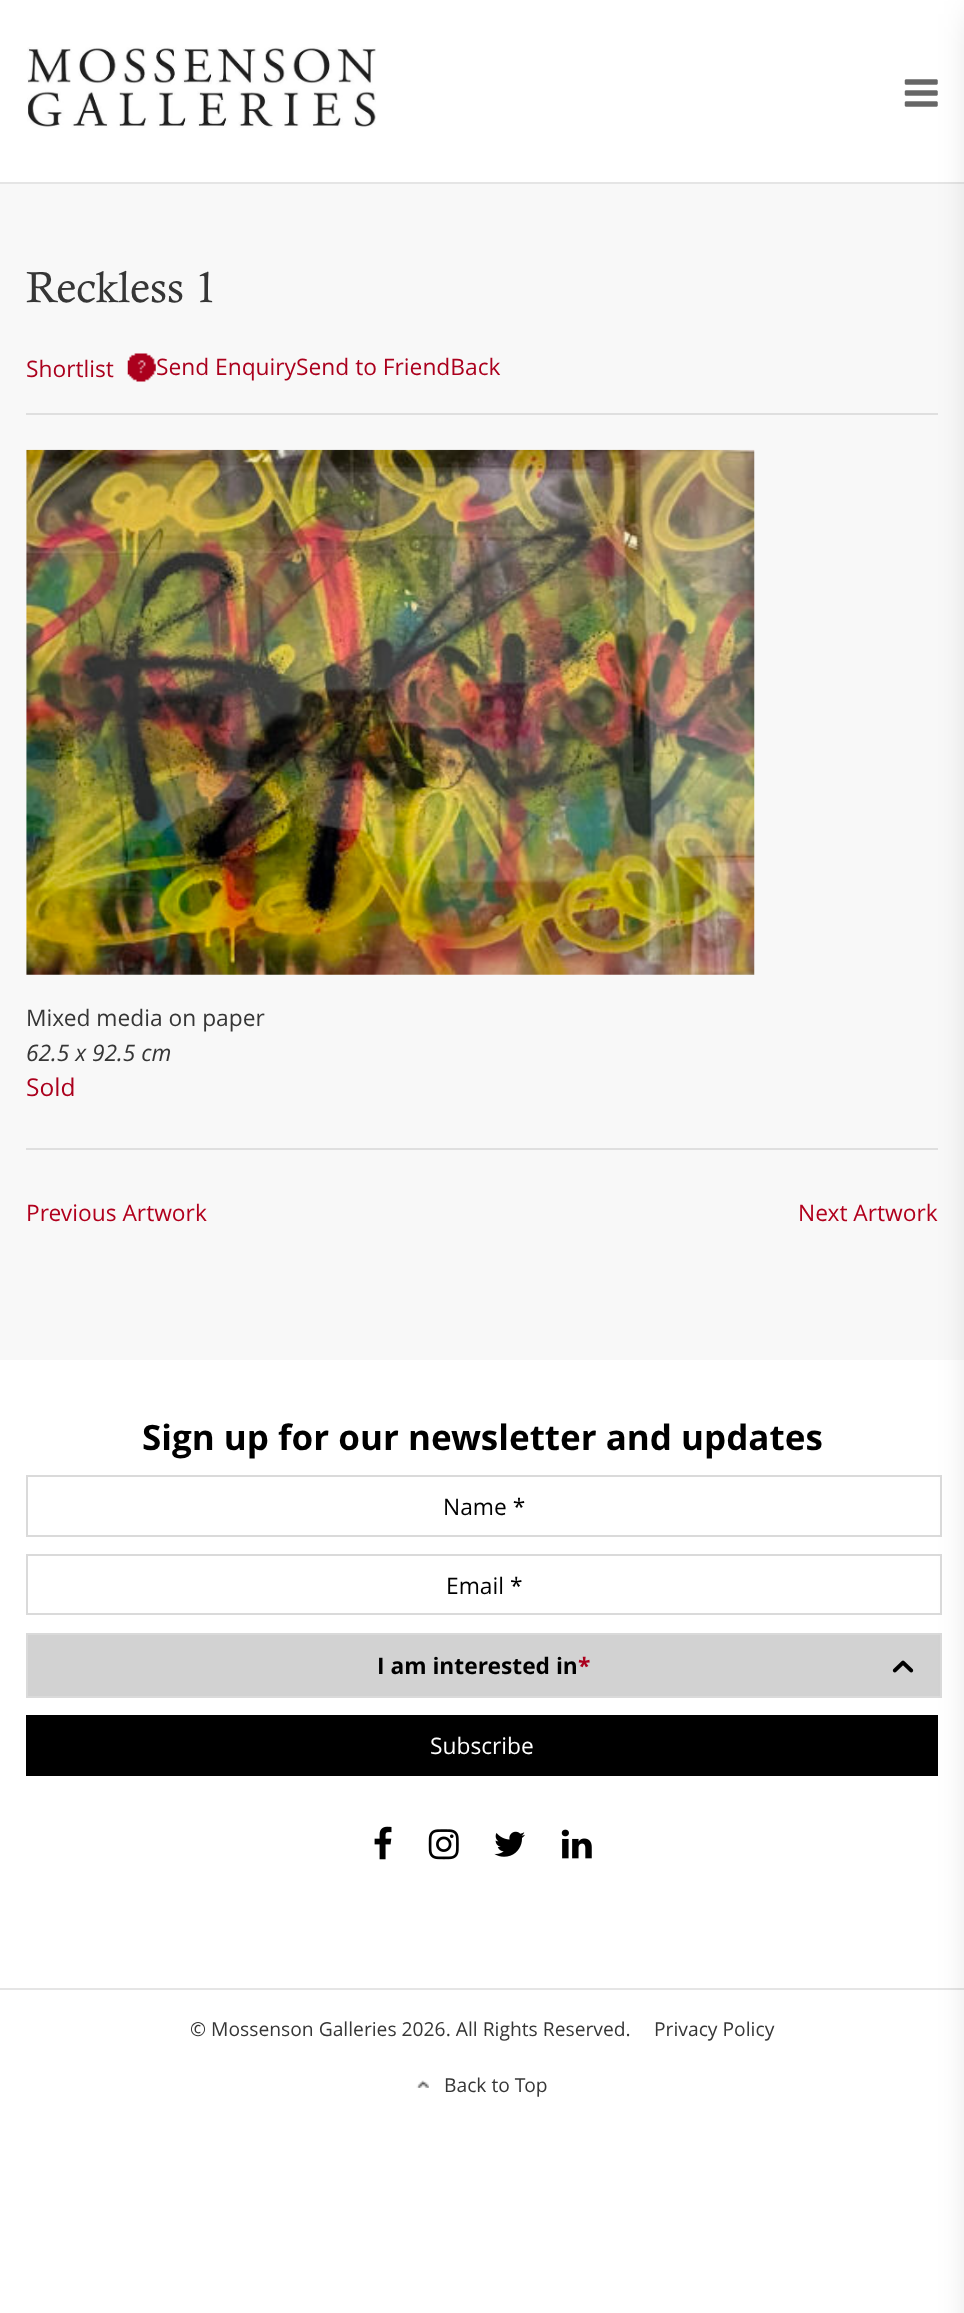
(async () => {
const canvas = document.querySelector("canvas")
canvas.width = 964
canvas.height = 2313
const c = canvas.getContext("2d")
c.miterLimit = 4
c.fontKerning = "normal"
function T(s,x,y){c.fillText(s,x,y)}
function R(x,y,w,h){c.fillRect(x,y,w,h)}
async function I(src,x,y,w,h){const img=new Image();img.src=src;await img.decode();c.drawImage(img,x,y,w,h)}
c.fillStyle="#fff"
R(0,0,964,2313)
c.fillStyle="#e5e5e5"
R(0,182,964,2)
await I("1.png",27,47,349,81)
await I("2.png",904,79,34,28)
c.fillStyle="#f8f8f8"
R(0,184,964,1176)
c.fillStyle="#dfdfdf"
R(26,413,912,2)
R(26,1148,912,2)
c.strokeStyle="#dadada"
c.lineWidth=2
c.strokeRect(27,1476,914,60)
c.strokeRect(27,1555,914,59)
c.fillStyle="#d2d2d2"
c.beginPath()
c.rect(27,1634,914,63)
c.fill()
c.stroke()
c.fillStyle="#000"
R(26,1715,912,61)
c.fillStyle="#e5e5e5"
R(0,1988,964,2)
c.fillStyle="#00000033"
c.filter="blur(19px)"
c.beginPath()
c.rect(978,14,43,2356)
c.fill()
c.filter="none"
c.font="43.75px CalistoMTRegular"
c.fillStyle="#363636"
T("Reckless 1",26,302)
c.font="22.75px Open Sans"
c.fillStyle="#ab001d"
T("Shortlist",26,377)
await I("3.png",127,353,29,29)
T("Send EnquirySend to FriendBack",156,375)
await I("4.png",26,449,729,526)
c.fillStyle="#363636"
T("Mixed media on paper",26,1026)
c.font="italic 22.75px Open Sans"
T("62.5 x 92.5 cm",26,1061)
c.font="24.5px Open Sans"
c.fillStyle="#ab001d"
T("Sold",26,1096)
c.font="22.75px Open Sans"
c.fillStyle="#b1001d"
T("Previous Artwork",26,1221)
T("Next Artwork",798,1221)
c.font="bold 35px Open Sans"
c.fillStyle="#000"
T("Sign up for our newsletter and updates",142,1450)
c.font="22.75px Open Sans"
T("Name *",443,1515)
T("Email *",446,1594)
c.font="bold 22.75px Open Sans"
T("I am interested in",377,1674)
c.fillStyle="#ab001d"
T("*",578,1674)
await I("5.png",892,1660,22,13)
c.font="22.75px Open Sans"
c.fillStyle="#fff"
T("Subscribe",430,1754)
await I("6.png",374,1826,18,34)
await I("7.png",428,1829,31,31)
await I("8.png",494,1831,31,26)
await I("9.png",561,1829,31,30)
c.font="19.25px Open Sans"
c.fillStyle="#363636"
T("© Mossenson Galleries 2026. All Rights Reserved.",190,2036)
T("Privacy Policy",654,2036)
await I("10.png",416,2080,13,8)
T("Back to Top",444,2092)
})()
